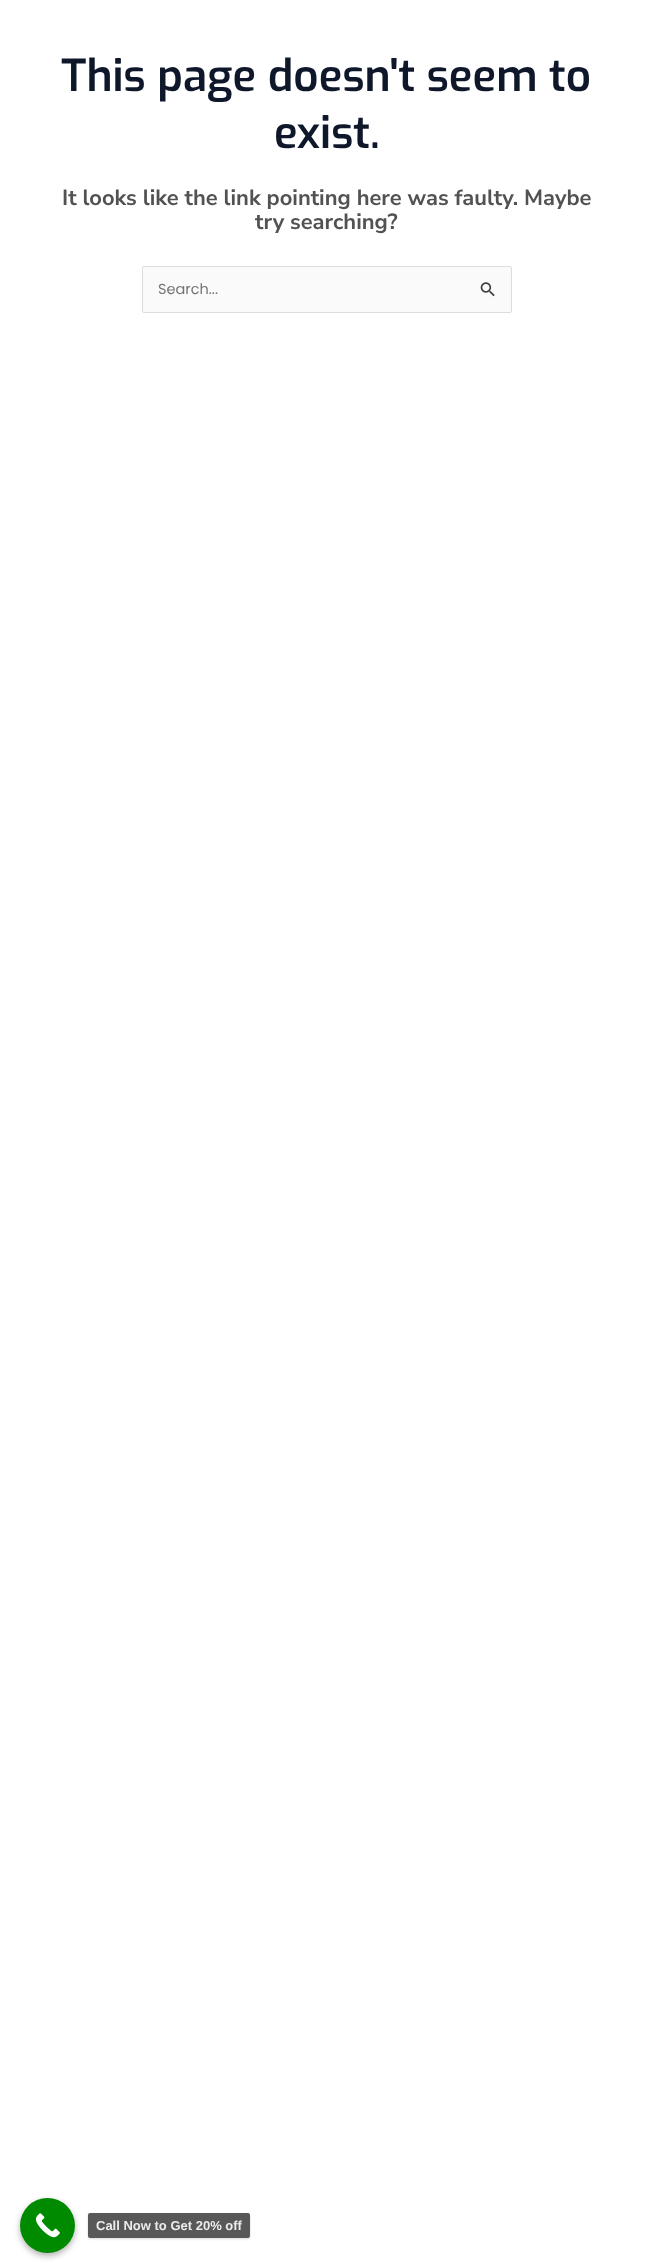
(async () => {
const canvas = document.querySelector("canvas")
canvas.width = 653
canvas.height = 2268
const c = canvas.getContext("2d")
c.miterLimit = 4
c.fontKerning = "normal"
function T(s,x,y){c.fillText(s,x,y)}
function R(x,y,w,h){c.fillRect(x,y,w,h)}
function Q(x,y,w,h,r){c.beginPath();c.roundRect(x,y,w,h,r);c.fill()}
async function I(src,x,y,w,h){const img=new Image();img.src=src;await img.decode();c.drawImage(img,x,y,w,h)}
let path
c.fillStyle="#fff"
R(0,0,653,2268)
c.font="600 44px Exo"
c.fillStyle="#0f172a"
T("This page doesn't seem to",61,91)
T("exist.",274,148)
c.font="bold 21.9px Nunito Sans"
c.fillStyle="#525252"
T("It looks like the link pointing here was faulty. Maybe",62,205)
T("try searching?",255,229)
c.fillStyle="#fafafa"
c.beginPath()
c.roundRect(142.5,266.5,369,46,1.5)
c.fill()
c.strokeStyle="#ddd"
c.stroke()
c.font="14.5px Poppins"
c.fillStyle="#757575"
T("Search...",158,294)
await I("1.png",480,282,15,15)
c.fillStyle="#0000004d"
c.filter="blur(3px)"
c.beginPath()
c.roundRect(20,2201,55,55,27.5)
c.fill()
c.filter="none"
c.fillStyle="#008a00"
c.beginPath()
c.arc(47.5,2225.5,27.5,0,7)
c.fill()
await I("2.png",35,2213,25,25)
c.save()
path = new Path2D("M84 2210h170v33h-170zm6 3h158c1 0 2 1 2 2v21c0 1-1 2-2 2h-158c-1 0-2-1-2-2v-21c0-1 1-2 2-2z")
c.clip(path,"evenodd")
c.fillStyle="#00000026"
c.filter="blur(1px)"
c.beginPath()
c.roundRect(88,2214,162,25,2)
c.fill()
c.filter="none"
c.restore()
c.fillStyle="#464646e6"
Q(88,2213,162,25,2)
c.font="bold 13px Liberation Sans"
c.fillStyle="#ececec"
T("Call Now to Get 20% off",96,2230)
})()
